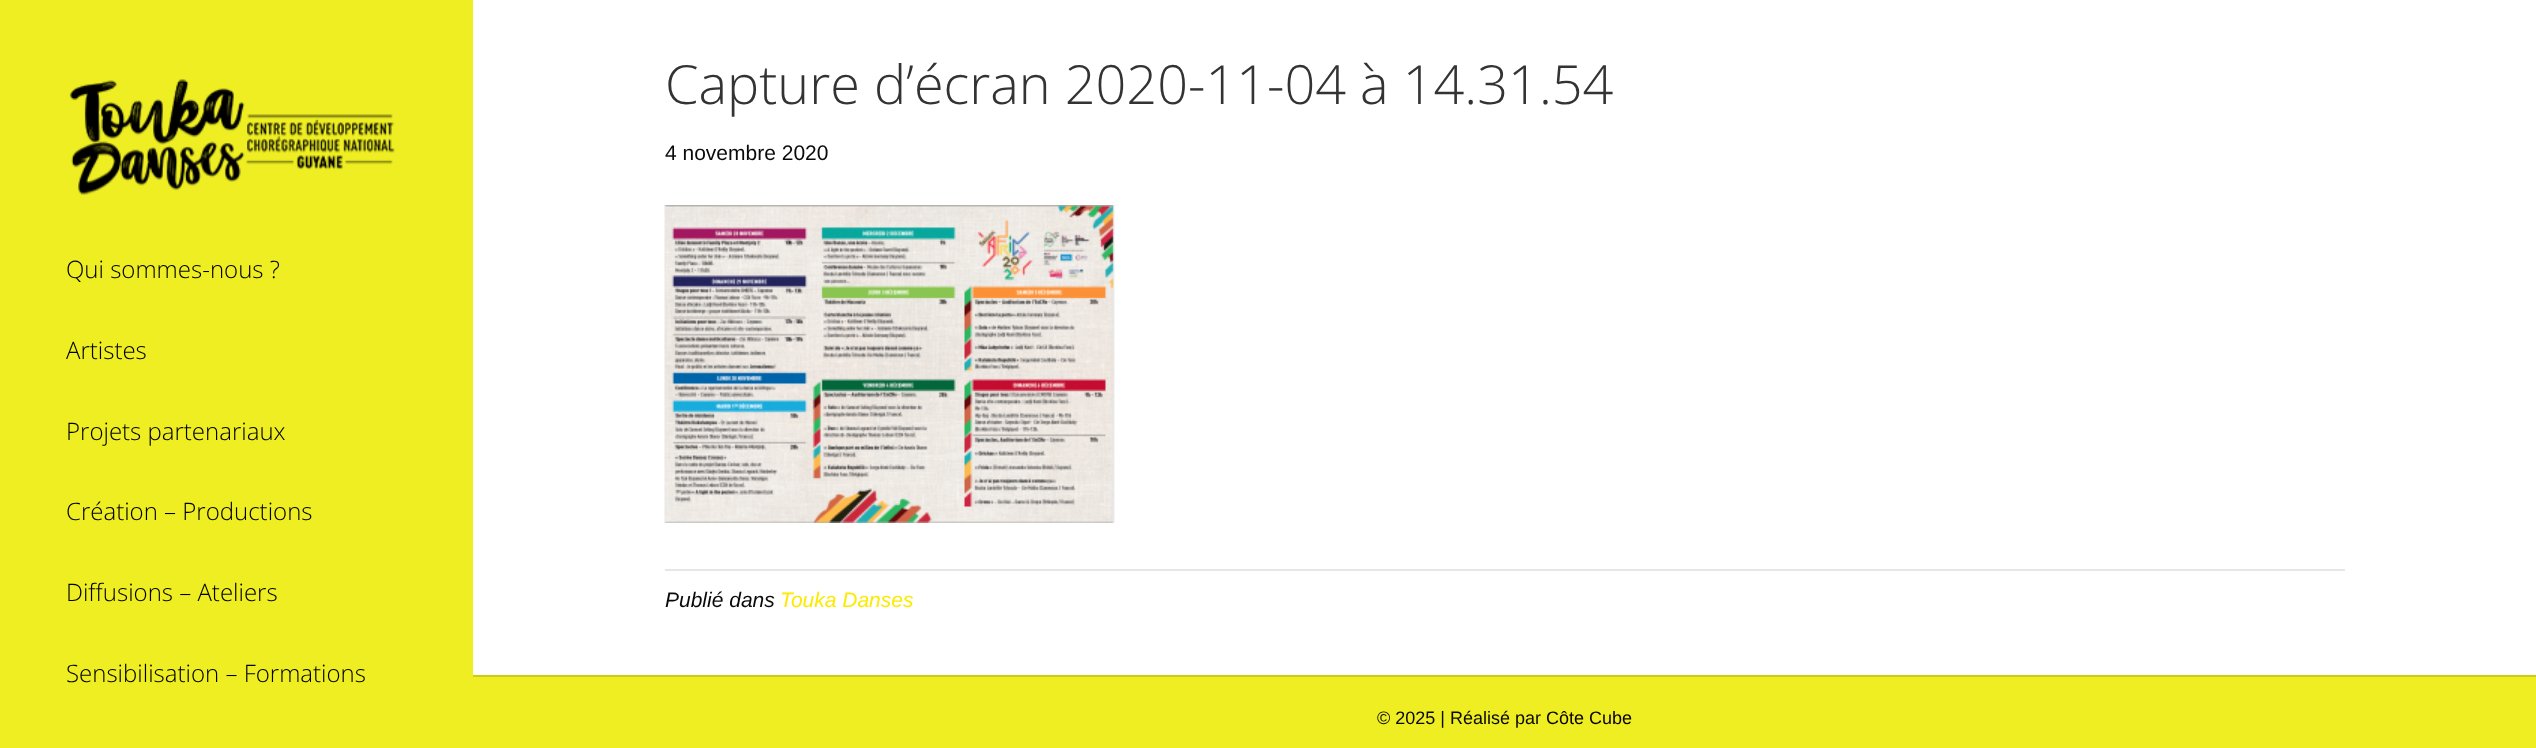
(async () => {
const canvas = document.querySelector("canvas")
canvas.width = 2536
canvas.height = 748
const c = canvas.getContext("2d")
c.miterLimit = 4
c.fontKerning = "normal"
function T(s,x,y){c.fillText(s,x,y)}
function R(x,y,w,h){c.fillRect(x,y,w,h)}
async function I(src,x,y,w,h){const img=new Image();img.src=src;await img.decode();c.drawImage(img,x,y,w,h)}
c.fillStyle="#fff"
R(0,0,2536,748)
c.fillStyle="#ee2"
R(0,0,473,748)
await I("1.png",69,79,326,116)
c.font="300 24px Open Sans"
c.fillStyle="#000"
T("Qui sommes-nous ?",66,278)
T("Artistes",66,359)
T("Projets partenariaux",66,440)
T("Création – Productions",66,520)
T("Diffusions – Ateliers",66,601)
T("Sensibilisation – Formations",66,682)
c.font="300 54px Open Sans"
c.fillStyle="#333"
T("Capture d’écran 2020-11-04 à 14.31.54",665,104)
c.font="21px Liberation Sans"
c.fillStyle="#0a0a0a"
T("4 novembre 2020",665,160)
await I("2.png",664,205,451,318)
c.fillStyle="#e6e6e6"
R(665,569,1680,2)
c.font="italic 21px Liberation Sans"
c.fillStyle="#0a0a0a"
T("Publié dans",665,607)
c.fillStyle="#fdea02"
T("Touka Danses",780,607)
c.fillStyle="#ee2"
R(473,677,2063,71)
c.fillStyle="#cdcd10"
R(473,675,2063,2)
c.font="18px Liberation Sans"
c.fillStyle="#0a0a0a"
T("© 2025 | Réalisé par",1377,724)
c.fillStyle="#0a0303"
T("Côte Cube",1546,724)
})()
